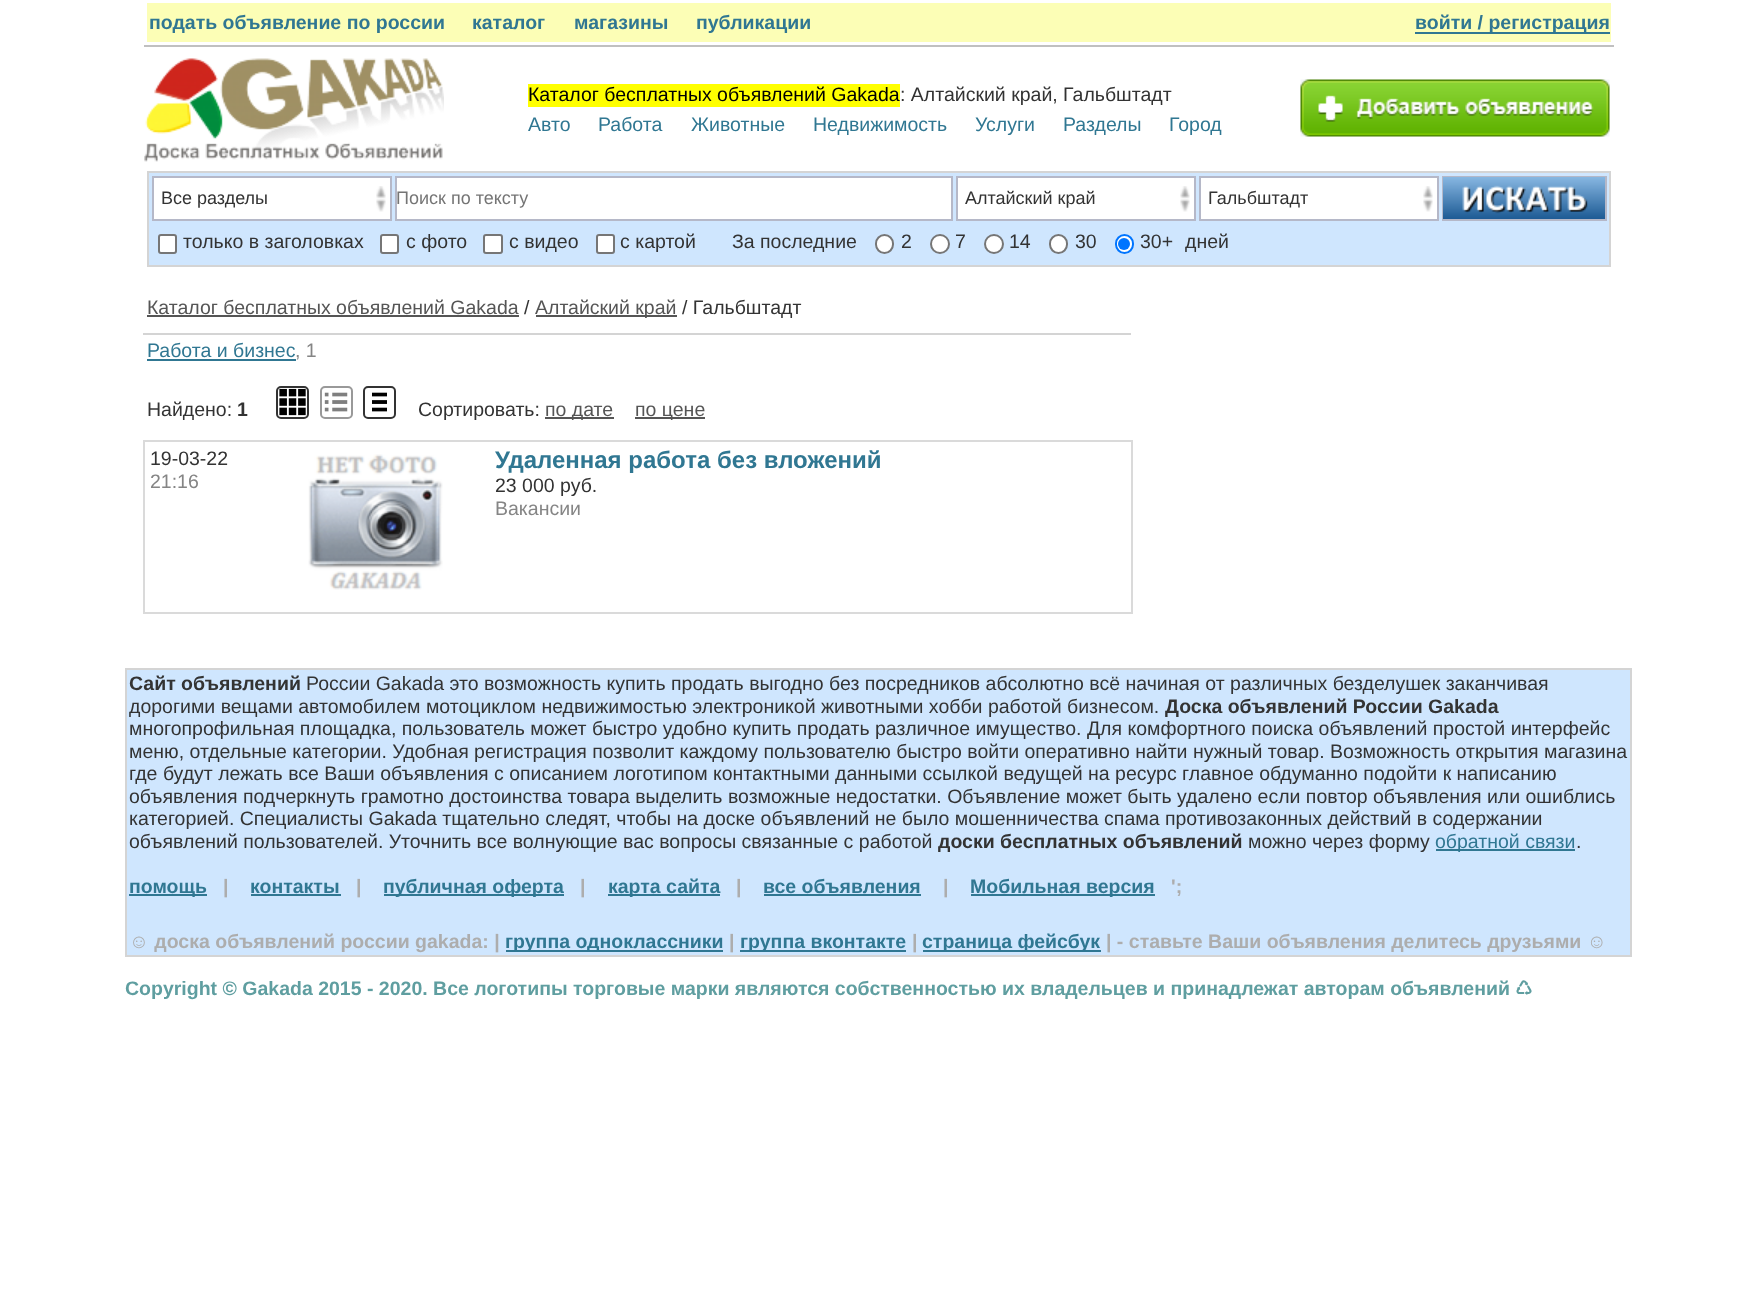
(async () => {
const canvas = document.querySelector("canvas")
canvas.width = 1756
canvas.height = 1299
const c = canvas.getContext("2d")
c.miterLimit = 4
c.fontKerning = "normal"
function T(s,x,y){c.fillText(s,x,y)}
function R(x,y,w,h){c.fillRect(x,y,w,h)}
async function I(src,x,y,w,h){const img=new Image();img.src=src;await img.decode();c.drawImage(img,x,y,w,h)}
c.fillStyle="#fff"
R(0,0,1756,1299)
c.fillStyle="#c0c0c0"
R(144,45,1470,2)
c.fillStyle="#fcfeb6"
R(147,3,1464,39)
c.font="bold 19.5px Liberation Sans"
c.fillStyle="#307792"
T("подать объявление по россии",149,29)
T("каталог",472,29)
T("магазины",574,29)
T("публикации",696,29)
R(1415,32,195,2)
T("войти / регистрация",1415,29)
await I("1.png",144,58,300,104)
c.fillStyle="#ff0"
R(528,84,372,23)
c.font="19.5px Liberation Sans"
c.fillStyle="#000"
T("Каталог бесплатных объявлений Gakada",528,101)
c.fillStyle="#333"
T(": Алтайский край, Гальбштадт",900,101)
c.fillStyle="#307792"
T("Авто",528,131)
T("Работа",598,131)
T("Животные",691,131)
T("Недвижимость",813,131)
T("Услуги",975,131)
T("Разделы",1063,131)
T("Город",1169,131)
await I("2.png",1300,79,310,58)
c.fillStyle="#cfe6fe"
c.beginPath()
c.rect(148,172,1462,94)
c.fill()
c.strokeStyle="#d4d4d4"
c.lineWidth=2
c.stroke()
c.fillStyle="#fff"
R(154,178,236,41)
await I("3.png",376,186,10,26)
c.strokeStyle="#b5b8c8"
c.strokeRect(153,177,238,43)
c.font="18px Liberation Sans"
c.fillStyle="#333"
T("Все разделы",161,204)
c.fillStyle="#fff"
c.beginPath()
c.rect(396,177,556,43)
c.fill()
c.stroke()
c.fillStyle="#757575"
T("Поиск по тексту",396,204)
c.fillStyle="#fff"
R(958,178,236,41)
await I("3.png",1180,186,10,26)
c.strokeRect(957,177,238,43)
c.fillStyle="#333"
T("Алтайский край",965,204)
c.fillStyle="#fff"
R(1201,178,236,41)
await I("3.png",1423,186,10,26)
c.strokeRect(1200,177,238,43)
c.fillStyle="#333"
T("Гальбштадт",1208,204)
c.strokeRect(1443,177,163,43)
await I("4.png",1443,177,162,42)
c.fillStyle="#fff"
c.beginPath()
c.roundRect(159,235,17,18,2)
c.fill()
c.strokeStyle="#767676"
c.stroke()
c.font="19.5px Liberation Sans"
c.fillStyle="#333"
T("только в заголовках",183,248)
c.fillStyle="#fff"
c.beginPath()
c.roundRect(381,235,17,18,2)
c.fill()
c.stroke()
c.fillStyle="#333"
T("с фото",406,248)
c.fillStyle="#fff"
c.beginPath()
c.roundRect(484,235,18,18,2)
c.fill()
c.stroke()
c.fillStyle="#333"
T("с видео",509,248)
c.fillStyle="#fff"
c.beginPath()
c.roundRect(597,235,17,18,2)
c.fill()
c.stroke()
c.fillStyle="#333"
T("с картой",620,248)
T("За последние",732,248)
c.fillStyle="#fff"
c.beginPath()
c.roundRect(876,235,17,18,8.5)
c.fill()
c.stroke()
c.fillStyle="#333"
T("2",901,248)
c.fillStyle="#fff"
c.beginPath()
c.arc(940,244,9,0,7)
c.fill()
c.stroke()
c.fillStyle="#333"
T("7",955,248)
c.fillStyle="#fff"
c.beginPath()
c.arc(994,244,9,0,7)
c.fill()
c.stroke()
c.fillStyle="#333"
T("14",1009,248)
c.fillStyle="#fff"
c.beginPath()
c.roundRect(1050,235,17,18,8.5)
c.fill()
c.stroke()
c.fillStyle="#333"
T("30",1075,248)
c.fillStyle="#fff"
c.beginPath()
c.roundRect(1116,235,17,18,8.5)
c.fill()
c.strokeStyle="#0075ff"
c.stroke()
c.fillStyle="#0075ff"
c.beginPath()
c.arc(1124,244,6,0,7)
c.fill()
c.fillStyle="#333"
T("30+",1140,248)
T("дней",1185,248)
c.fillStyle="#d4d4d4"
R(143,333,988,2)
c.fillStyle="#555"
T("Каталог бесплатных объявлений Gakada",147,314)
R(147,315,372,2)
c.fillStyle="#333"
T("/",524,314)
c.fillStyle="#555"
R(536,315,141,2)
T("Алтайский край",535,314)
c.fillStyle="#333"
T("/ Гальбштадт",682,314)
c.fillStyle="#307792"
T("Работа и бизнес",147,357)
R(147,359,149,2)
c.fillStyle="#858585"
T(", 1",295,357)
c.beginPath()
c.roundRect(277,387,31,31,4)
c.strokeStyle="#333"
c.stroke()
c.beginPath()
c.roundRect(321,387,31,31,4)
c.strokeStyle="#999"
c.stroke()
c.beginPath()
c.roundRect(364,387,31,31,4)
c.strokeStyle="#333"
c.stroke()
c.fillStyle="#333"
T("Найдено:",147,416)
c.font="bold 19.5px Liberation Sans"
T("1",237,416)
await I("5.png",279,388,27,28)
await I("6.png",324,392,24,20)
await I("7.png",372,392,15,20)
c.font="19.5px Liberation Sans"
T("Сортировать:",418,416)
c.fillStyle="#555"
R(545,417,69,2)
T("по дате",545,416)
R(635,417,70,2)
T("по цене",635,416)
c.fillStyle="#dadada"
R(143,440,990,2)
R(1131,440,2,174)
R(143,612,990,2)
R(143,440,2,174)
c.fillStyle="#333"
T("19-03-22",150,465)
c.fillStyle="#858585"
T("21:16",150,488)
await I("8.png",308,454,135,136)
c.font="bold 24px Liberation Sans"
c.fillStyle="#307792"
T("Удаленная работа без вложений",495,468)
c.font="19.5px Liberation Sans"
c.fillStyle="#333"
T("23 000 руб.",495,492)
c.fillStyle="#858585"
T("Вакансии",495,515)
c.fillStyle="#cfe6fe"
c.beginPath()
c.rect(126,669,1505,287)
c.fill()
c.strokeStyle="#d4d4d4"
c.stroke()
c.font="bold 19.5px Liberation Sans"
c.fillStyle="#333"
T("Сайт объявлений",129,690)
c.font="19.5px Liberation Sans"
T("России Gakada это возможность купить продать выгодно без посредников абсолютно всё начиная от различных безделушек заканчивая",306,690)
T("дорогими вещами автомобилем мотоциклом недвижимостью электроникой животными хобби работой бизнесом.",129,713)
c.font="bold 19.5px Liberation Sans"
T("Доска объявлений России Gakada",1165,713)
c.font="19.5px Liberation Sans"
T("многопрофильная площадка, пользователь может быстро удобно купить продать различное имущество. Для комфортного поиска объявлений простой интерфейс",129,735)
T("меню, отдельные категории. Удобная регистрация позволит каждому пользователю быстро войти оперативно найти нужный товар. Возможность открытия магазина",129,758)
T("где будут лежать все Ваши объявления с описанием логотипом контактными данными ссылкой ведущей на ресурс главное обдуманно подойти к написанию",129,780)
T("объявления подчеркнуть грамотно достоинства товара выделить возможные недостатки. Объявление может быть удалено если повтор объявления или ошиблись",129,803)
T("категорией. Специалисты Gakada тщательно следят, чтобы на доске объявлений не было мошенничества спама противозаконных действий в содержании",129,825)
T("объявлений пользователей. Уточнить все волнующие вас вопросы связанные с работой",129,848)
c.font="bold 19.5px Liberation Sans"
T("доски бесплатных объявлений",938,848)
c.font="19.5px Liberation Sans"
T("можно через форму",1248,848)
c.fillStyle="#307792"
R(1436,849,139,2)
T("обратной связи",1435,848)
c.fillStyle="#333"
T(".",1576,848)
c.fillStyle="#307792"
R(129,894,78,2)
c.font="bold 19.5px Liberation Sans"
T("помощь",129,893)
c.fillStyle="#adadad"
T("|",223,893)
c.fillStyle="#307792"
T("контакты",250,893)
R(251,894,90,2)
c.fillStyle="#adadad"
T("|",356,893)
c.fillStyle="#307792"
R(384,894,180,2)
T("публичная оферта",383,893)
c.fillStyle="#adadad"
T("|",580,893)
c.fillStyle="#307792"
R(608,894,112,2)
T("карта сайта",608,893)
c.fillStyle="#adadad"
T("|",736,893)
c.fillStyle="#307792"
T("все объявления",763,893)
R(764,894,157,2)
c.fillStyle="#adadad"
T("|",943,893)
c.fillStyle="#307792"
R(971,894,184,2)
T("Мобильная версия",970,893)
c.fillStyle="#adadad"
T("';",1171,893)
T("☺ доска объявлений россии gakada: |",129,948)
c.fillStyle="#307792"
R(506,950,217,2)
T("группа одноклассники",505,948)
c.fillStyle="#adadad"
T("|",729,948)
c.fillStyle="#307792"
R(740,950,166,2)
T("группа вконтакте",740,948)
c.fillStyle="#adadad"
T("|",912,948)
c.fillStyle="#307792"
R(923,950,178,2)
T("страница фейсбук",922,948)
c.fillStyle="#adadad"
T("| - ставьте Ваши объявления делитесь друзьями ☺",1106,948)
c.fillStyle="#5f9ea0"
T("Copyright © Gakada 2015 - 2020. Все логотипы торговые марки являются собственностью их владельцев и принадлежат авторам объявлений",125,995)
c.font="bold 19.5px DejaVu Sans"
T("♺",1515,995)
})()
